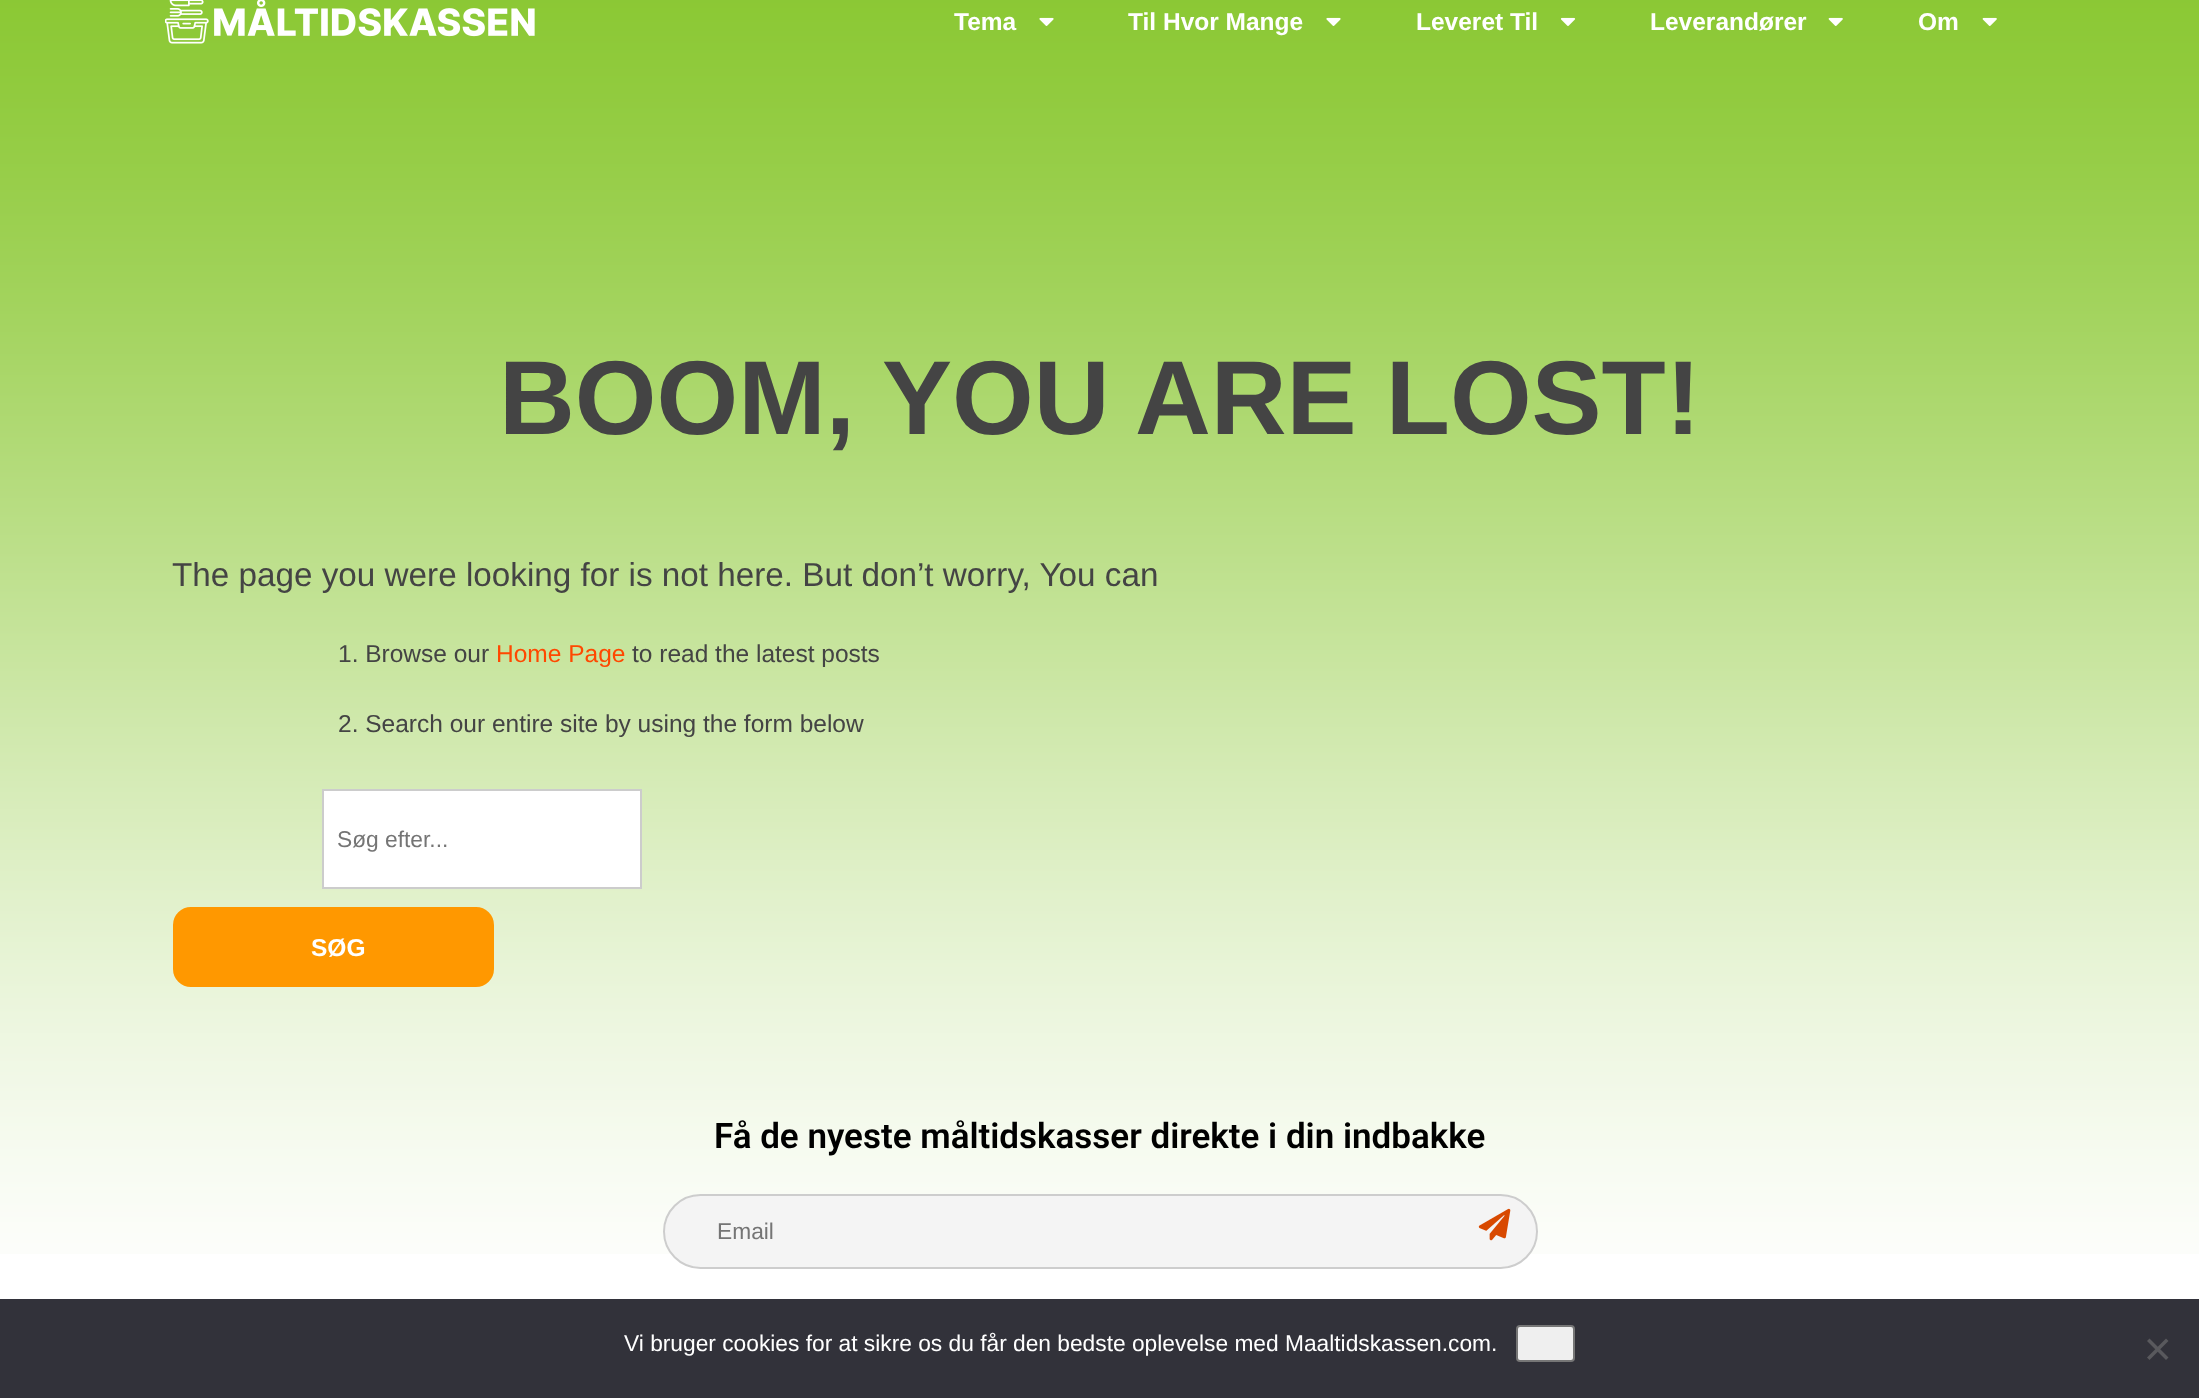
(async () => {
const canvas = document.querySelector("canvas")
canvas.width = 2199
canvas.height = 1398
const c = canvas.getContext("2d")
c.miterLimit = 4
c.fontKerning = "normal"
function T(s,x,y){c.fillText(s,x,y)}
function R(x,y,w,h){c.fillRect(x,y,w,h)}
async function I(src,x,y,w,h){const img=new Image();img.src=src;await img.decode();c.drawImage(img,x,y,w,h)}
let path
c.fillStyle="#fff"
R(0,0,2199,1398)
await I("1.png",0,0,2199,1254)
await I("2.png",165,0,370,44)
c.font="bold 24.5px Liberation Sans"
T("Tema",954,30)
await I("3.png",1039,17,15,9)
T("Til Hvor Mange",1128,30)
await I("3.png",1326,17,15,9)
T("Leveret Til",1416,30)
await I("4.png",1560,17,16,9)
T("Leverandører",1650,30)
await I("5.png",1828,17,15,9)
T("Om",1918,30)
await I("5.png",1982,17,15,9)
c.font="bold 105px Liberation Sans"
c.fillStyle="#444"
T("BOOM, YOU ARE LOST!",499,434)
c.font="33.25px Liberation Sans"
T("The page you were looking for is not here. But don’t worry, You can",172,586)
c.font="24.5px Liberation Sans"
T("1. Browse our",338,662)
c.fillStyle="#ff4800"
T("Home Page",496,662)
c.fillStyle="#444"
T("to read the latest posts",632,662)
T("2. Search our entire site by using the form below",338,732)
c.fillStyle="#fff"
c.beginPath()
c.rect(323,790,318,98)
c.fill()
c.strokeStyle="#ccc"
c.lineWidth=2
c.stroke()
c.font="22.75px Liberation Sans"
c.fillStyle="#757575"
T("Søg efter...",337,847)
c.fillStyle="#ff9800"
c.beginPath()
c.roundRect(174,908,319,78,17)
c.fill()
c.strokeStyle="#ff9800"
c.stroke()
c.font="bold 24.5px Liberation Sans"
c.fillStyle="#fff"
T("SØG",311,956)
c.font="600 35px Roboto"
c.fillStyle="#000"
T("Få de nyeste måltidskasser direkte i din indbakke",714,1148)
c.fillStyle="#f4f4f4"
c.beginPath()
c.roundRect(664,1195,873,73,36.5)
c.fill()
c.strokeStyle="#cdcdcd"
c.stroke()
c.font="22.75px Liberation Sans"
c.fillStyle="#757575"
T("Email",717,1239)
await I("6.png",1478,1208,33,33)
c.fillStyle="#32323a"
R(0,1299,2199,99)
c.fillStyle="#fff"
T("Vi bruger cookies for at sikre os du får den bedste oplevelse med Maaltidskassen.com.",624,1351)
c.fillStyle="#efefef"
c.beginPath()
c.roundRect(1517,1326,57,35,3)
c.fill()
c.strokeStyle="#767676"
c.stroke()
c.fillStyle="#59595d"
path = new Path2D("M2166 1338.5l2.5 2.5l-19 19l-2.5-2.5z")
c.fill(path)
path = new Path2D("M2147 1341l2.5-2.5l19 19l-2.5 2.5z")
c.fill(path)
})()
